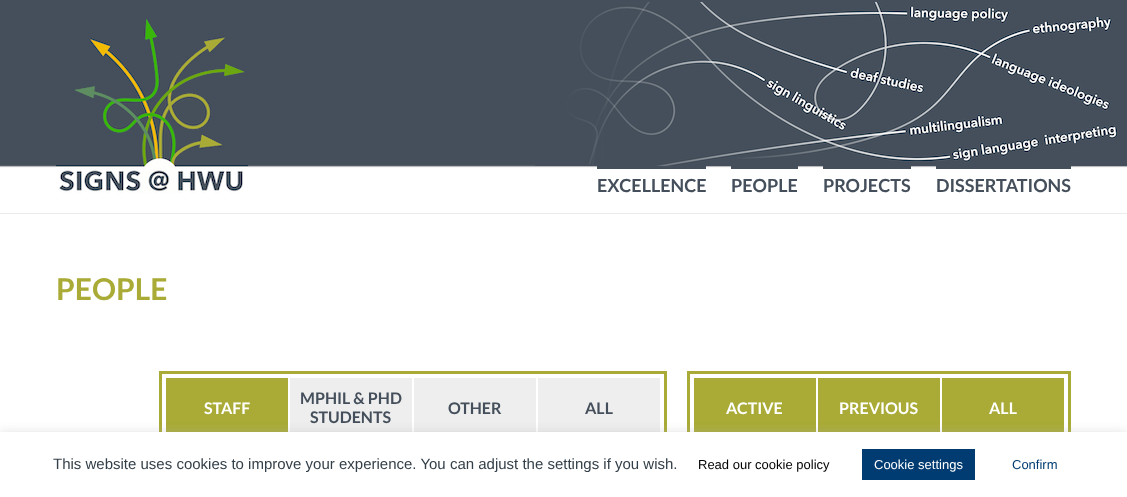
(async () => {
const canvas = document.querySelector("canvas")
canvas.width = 1127
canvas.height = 497
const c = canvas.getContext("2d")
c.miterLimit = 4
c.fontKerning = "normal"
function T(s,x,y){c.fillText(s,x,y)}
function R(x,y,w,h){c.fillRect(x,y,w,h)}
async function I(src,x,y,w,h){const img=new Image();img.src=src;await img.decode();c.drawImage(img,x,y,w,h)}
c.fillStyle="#fff"
R(0,0,1127,497)
await I("1.png",0,0,1127,168)
c.fillStyle="#ebebeb"
R(0,213,1127,1)
await I("2.png",535,2,592,164)
await I("3.png",56,19,192,174)
c.fillStyle="#444f5b"
R(597,166,109,3)
c.font="bold 18px Lato"
T("EXCELLENCE",597,192)
R(731,166,67,3)
T("PEOPLE",731,192)
R(823,166,88,3)
T("PROJECTS",823,192)
R(936,166,135,3)
T("DISSERTATIONS",936,192)
c.font="bold 30px Lato"
c.fillStyle="#a9ab36"
T("PEOPLE",56,300)
c.strokeStyle="#a9ab36"
c.lineWidth=3
c.strokeRect(160.5,372.5,505,69)
R(166,378,122,54)
c.font="bold 16px Lato"
c.fillStyle="#fff"
T("STAFF",204,414)
c.fillStyle="#eee"
R(290,378,122,54)
c.fillStyle="#444f5b"
T("MPHIL & PHD",300,404)
T("STUDENTS",310,423)
c.fillStyle="#eee"
R(414,378,122,54)
c.fillStyle="#444f5b"
T("OTHER",448,414)
c.fillStyle="#eee"
R(538,378,122,54)
c.fillStyle="#444f5b"
T("ALL",585,414)
c.strokeRect(688.5,372.5,381,69)
c.fillStyle="#a9ab36"
R(694,378,122,54)
c.fillStyle="#fff"
T("ACTIVE",726,414)
c.fillStyle="#a9ab36"
R(818,378,122,54)
c.fillStyle="#fff"
T("PREVIOUS",839,414)
c.fillStyle="#a9ab36"
R(942,378,122,54)
c.fillStyle="#fff"
T("ALL",989,414)
c.fillStyle="#acabab4d"
c.filter="blur(5px)"
c.beginPath()
c.rect(0,431,1127,65)
c.fill()
c.filter="none"
c.fillStyle="#fff"
R(0,432,1127,65)
c.font="15px Liberation Sans"
c.fillStyle="#333f48"
T("This website uses cookies to improve your experience. You can adjust the settings if you wish.",53,469)
c.font="13px Liberation Sans"
c.fillStyle="#020000"
T("Read our cookie policy",698,469)
c.fillStyle="#003c71"
R(862,449,113,31)
c.fillStyle="#fff"
T("Cookie settings",874,469)
c.fillStyle="#003c71"
T("Confirm",1012,469)
})()
